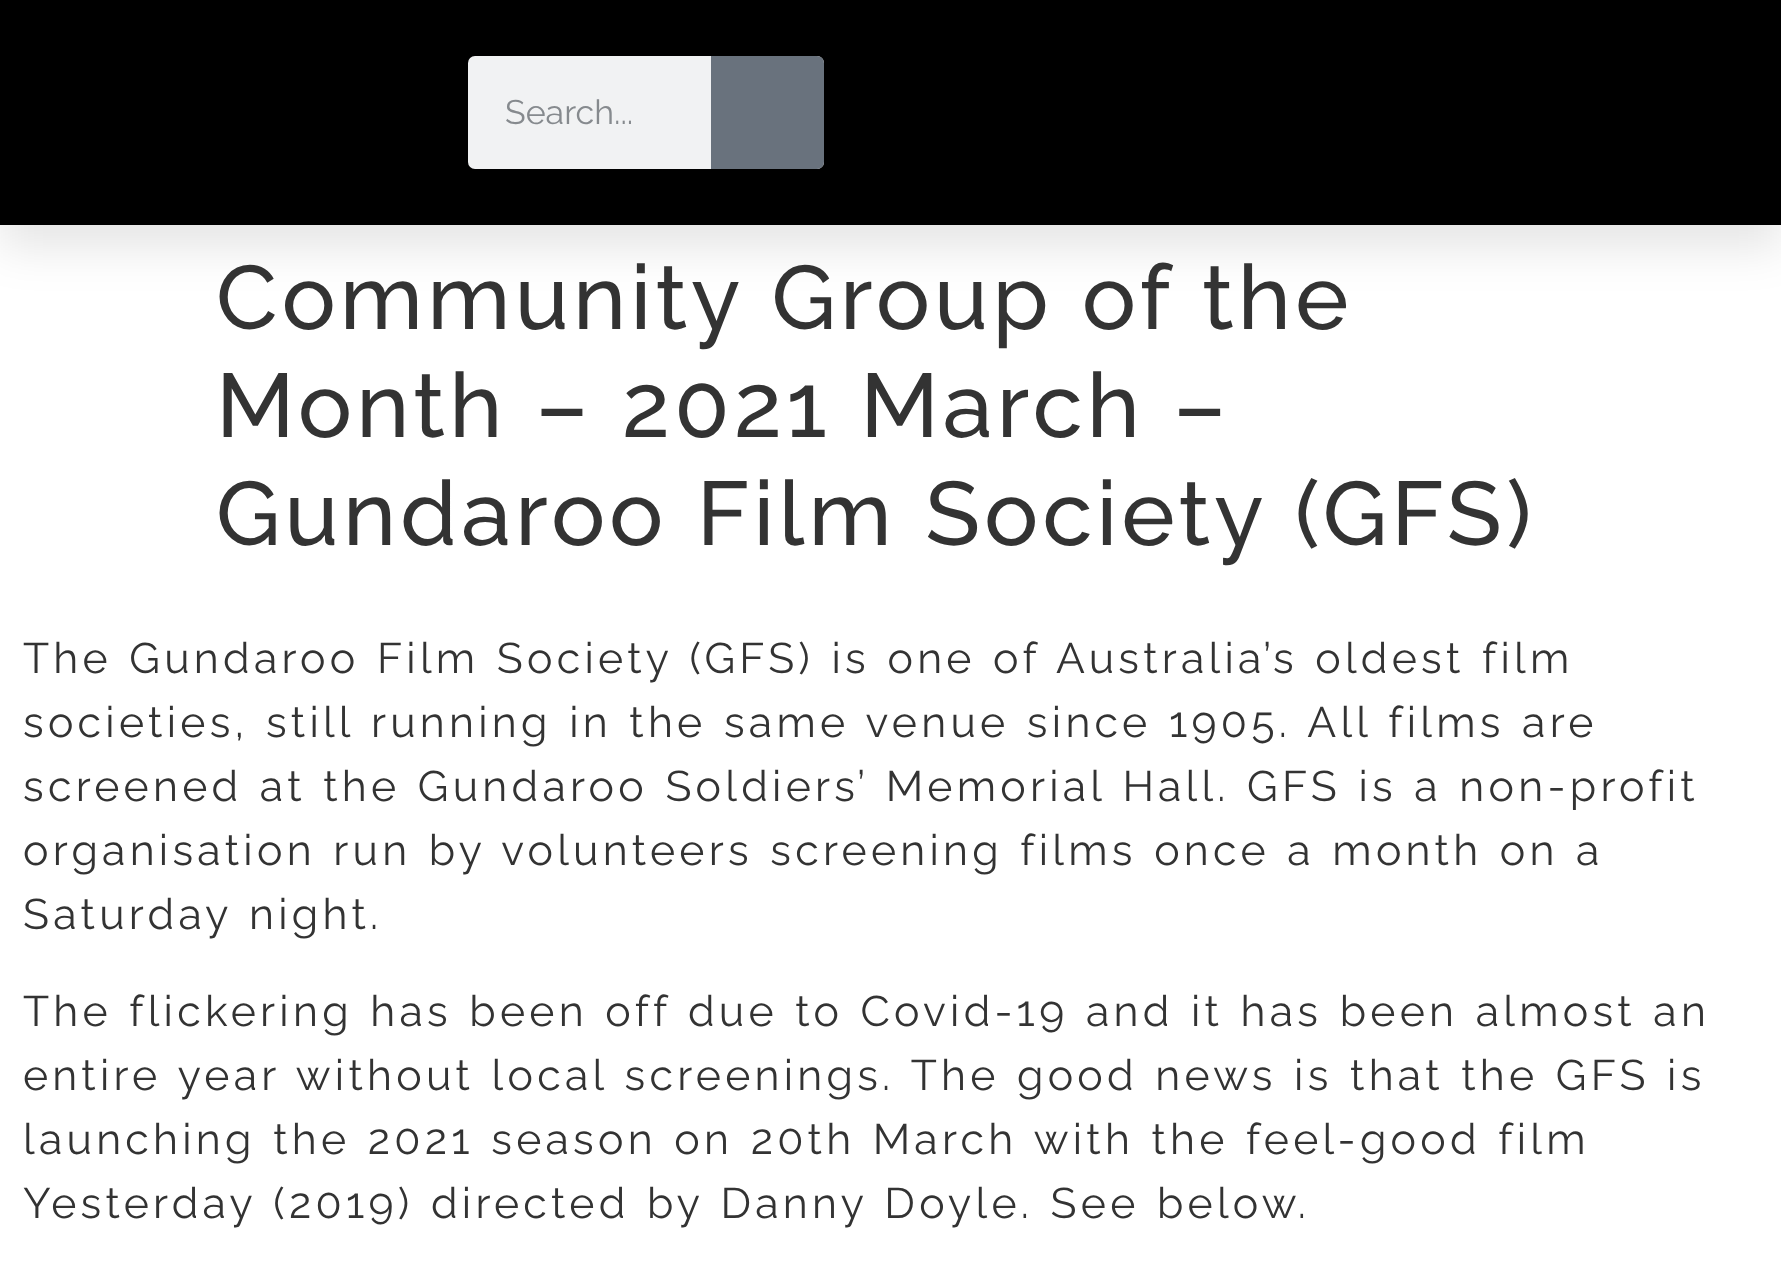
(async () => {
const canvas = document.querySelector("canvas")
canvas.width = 1781
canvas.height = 1276
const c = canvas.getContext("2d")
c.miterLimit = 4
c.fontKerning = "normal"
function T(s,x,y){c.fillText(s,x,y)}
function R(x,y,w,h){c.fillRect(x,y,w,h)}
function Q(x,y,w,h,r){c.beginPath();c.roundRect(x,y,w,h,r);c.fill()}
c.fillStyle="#fff"
R(0,0,1781,1276)
c.fillStyle="#0000001a"
c.filter="blur(22.5px)"
c.beginPath()
c.rect(0,23,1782,225)
c.fill()
c.filter="none"
c.fillStyle="#000"
R(0,0,1781,225)
c.fillStyle="#f1f2f3"
Q(468,56,356,113,7)
c.font="34px Raleway"
c.fillStyle="#868a8e"
T("Search...",505,124)
c.fillStyle="#69727d"
c.beginPath()
c.roundRect(711,56,113,113,[0,7,7,0])
c.fill()
c.letterSpacing="4.27px"
c.wordSpacing="2.25px"
c.font="500 90px Raleway"
c.fillStyle="#333"
T("Community Group of the",216,329)
T("Month – 2021 March –",216,437)
T("Gundaroo Film Society (GFS)",216,545)
c.font="42.75px Raleway"
T("The Gundaroo Film Society (GFS) is one of Australia’s oldest film",23,673)
T("societies, still running in the same venue since 1905. All films are",23,737)
T("screened at the Gundaroo Soldiers’ Memorial Hall. GFS is a non-profit",23,801)
T("organisation run by volunteers screening films once a month on a",23,865)
T("Saturday night.",23,929)
T("The flickering has been off due to Covid-19 and it has been almost an",23,1026)
T("entire year without local screenings. The good news is that the GFS is",23,1090)
T("launching the 2021 season on 20th March with the feel-good film",23,1154)
T("Yesterday (2019) directed by Danny Doyle. See below.",23,1218)
})()
